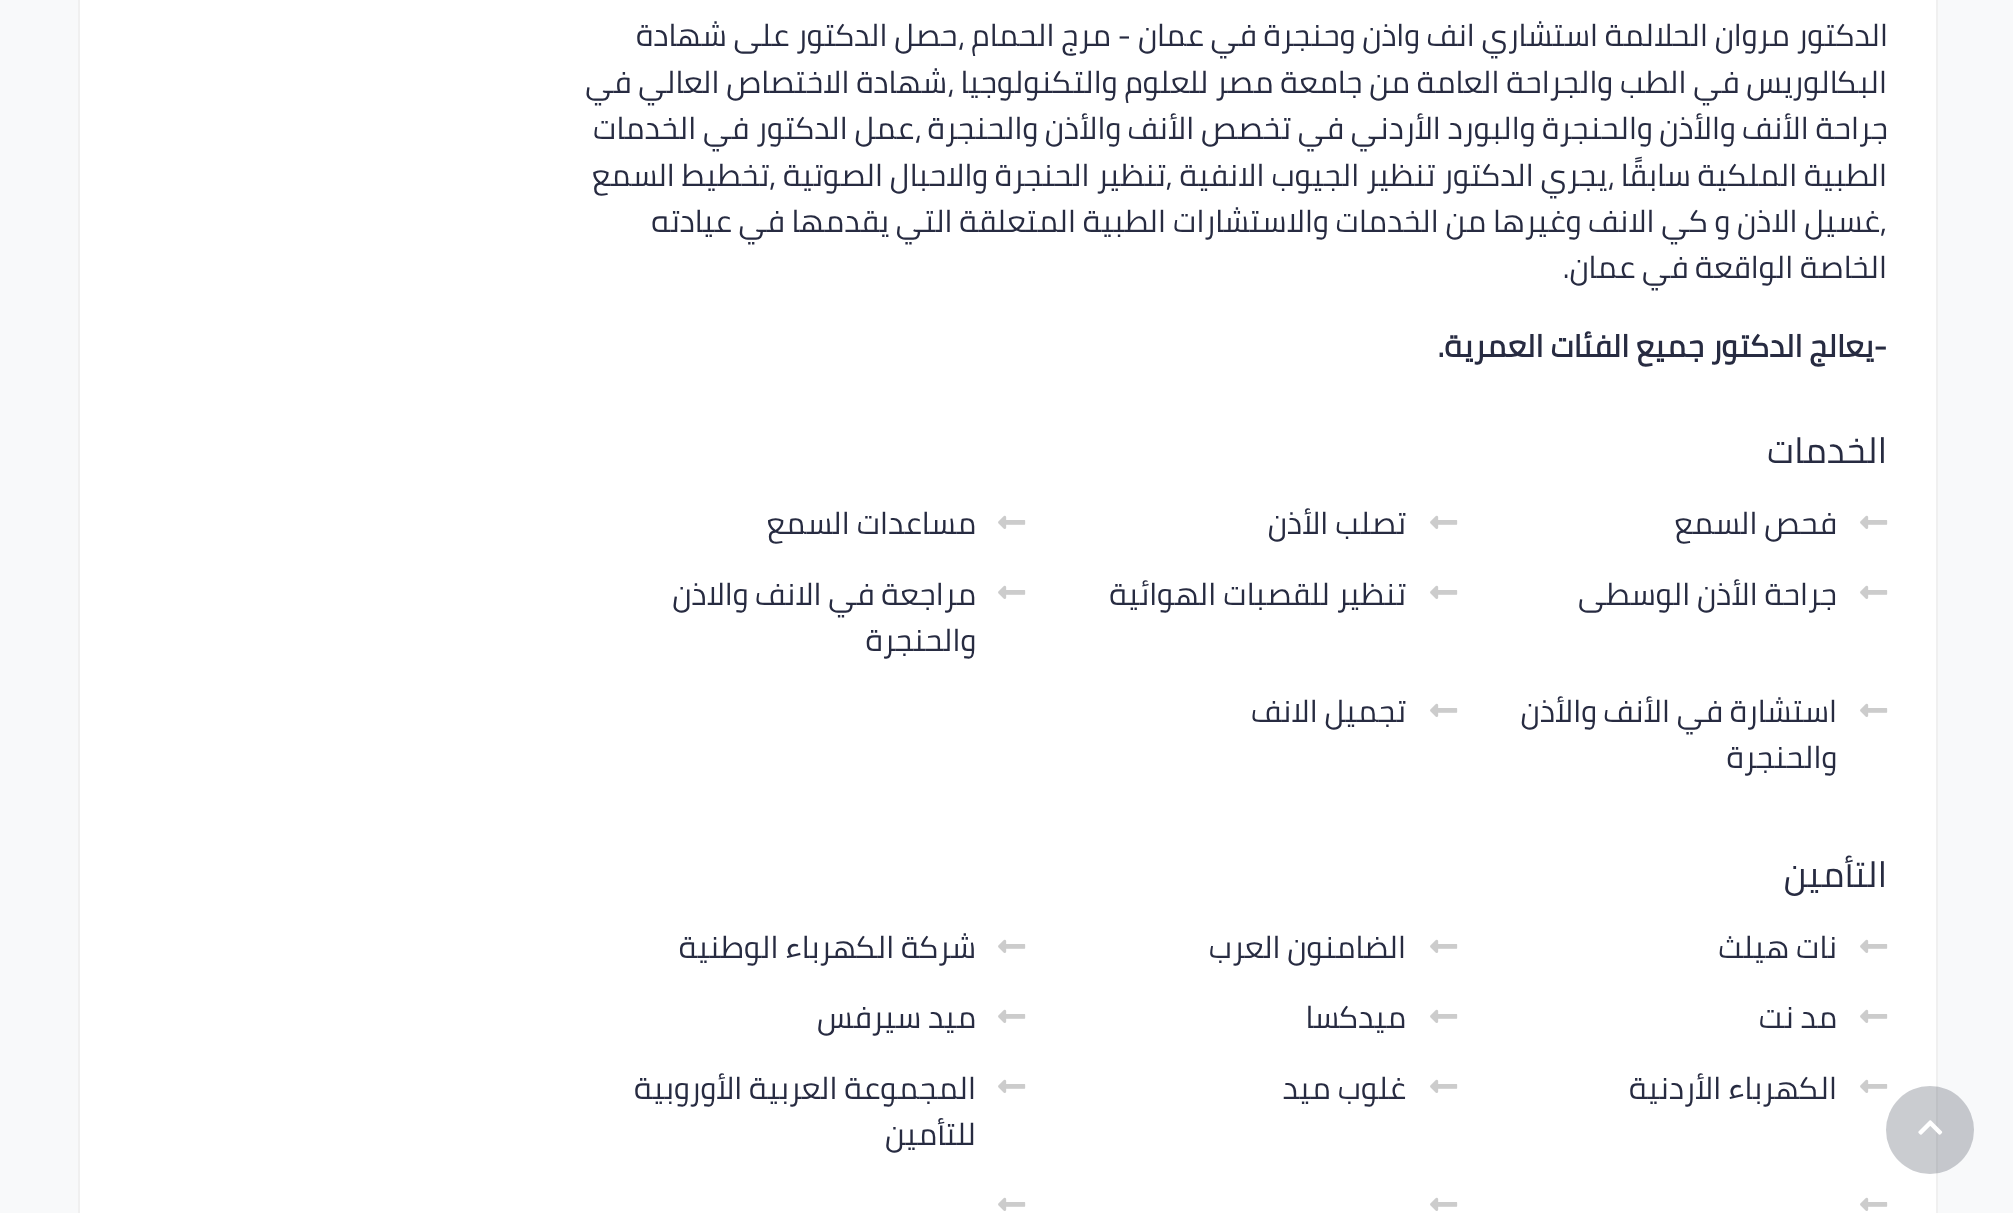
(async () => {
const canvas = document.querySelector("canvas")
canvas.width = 2013
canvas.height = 1213
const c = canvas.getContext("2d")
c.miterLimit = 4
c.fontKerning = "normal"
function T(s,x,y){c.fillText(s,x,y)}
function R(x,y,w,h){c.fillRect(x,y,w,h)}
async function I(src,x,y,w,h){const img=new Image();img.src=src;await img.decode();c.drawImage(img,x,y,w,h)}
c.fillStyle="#f8f9fa"
R(0,0,2013,1213)
c.fillStyle="#fff"
c.beginPath()
c.rect(79,-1,1858,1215)
c.fill()
c.strokeStyle="#f0f0f0"
c.lineWidth=2
c.stroke()
await I("2.png",1860,1079,28,14)
c.fillStyle="#2b344540"
c.beginPath()
c.arc(1930,1130,44,0,7)
c.fill()
await I("1.png",1918,1120,25,15)
c.direction="rtl"
c.font="30.95px Cairo"
c.fillStyle="#272b41"
T("الدكتور مروان الحلالمة استشاري انف واذن وحنجرة في عمان - مرج الحمام ،حصل الدكتور على شهادة",1888,46)
T("البكالوريس في الطب والجراحة العامة من جامعة مصر للعلوم والتكنولوجيا ،شهادة الاختصاص العالي في",1887,93)
T("جراحة الأنف والأذن والحنجرة والبورد الأردني في تخصص الأنف والأذن والحنجرة ،عمل الدكتور في الخدمات",1888,139)
T("الطبية الملكية سابقًا ،",1887,186)
T("يجري الدكتور تنظير الجيوب الانفية ,تنظير الحنجرة والاحبال الصوتية ,تخطيط السمع",1607,186)
T(",غسيل الاذن و كي الانف وغيرها من الخدمات والاستشارات الطبية المتعلقة التي يقدمها في عيادته",1887,232)
T("الخاصة الواقعة في عمان.",1887,278)
c.font="bold 30.95px Cairo"
T("-يعالج الدكتور جميع الفئات العمرية.",1887,357)
c.font="36px Cairo"
T("الخدمات",1887,463)
await I("2.png",1860,515,28,14)
c.font="30.95px Cairo"
T("فحص السمع",1837,534)
await I("2.png",1430,515,28,14)
T("تصلب الأذن",1406,534)
await I("2.png",998,515,28,14)
T("مساعدات السمع",976,534)
await I("2.png",1860,585,28,14)
T("جراحة الأذن الوسطى",1837,605)
await I("2.png",1430,585,28,14)
T("تنظير للقصبات الهوائية",1406,605)
await I("2.png",998,585,28,14)
T("مراجعة في الانف والاذن",976,605)
T("والحنجرة",976,651)
await I("2.png",1860,703,28,14)
T("استشارة في الأنف والأذن",1837,722)
T("والحنجرة",1837,768)
await I("2.png",1430,703,28,14)
T("تجميل الانف",1406,722)
c.font="36px Cairo"
T("التأمين",1887,887)
await I("2.png",1860,939,28,14)
c.font="30.95px Cairo"
T("نات هيلث",1837,958)
await I("2.png",1430,939,28,14)
T("الضامنون العرب",1406,958)
await I("2.png",998,939,28,14)
T("شركة الكهرباء الوطنية",976,958)
await I("2.png",1860,1009,28,14)
T("مد نت",1837,1028)
await I("2.png",1430,1009,28,14)
T("ميدكسا",1406,1028)
await I("2.png",998,1009,28,14)
T("ميد سيرفس",976,1028)
T("الكهرباء الأردنية",1837,1099)
await I("2.png",1430,1079,28,14)
T("غلوب ميد",1406,1099)
await I("2.png",998,1079,28,14)
T("المجموعة العربية الأوروبية",976,1099)
T("للتأمين",976,1145)
await I("2.png",1860,1197,28,14)
await I("2.png",1430,1197,28,14)
await I("2.png",998,1197,28,14)
})()
